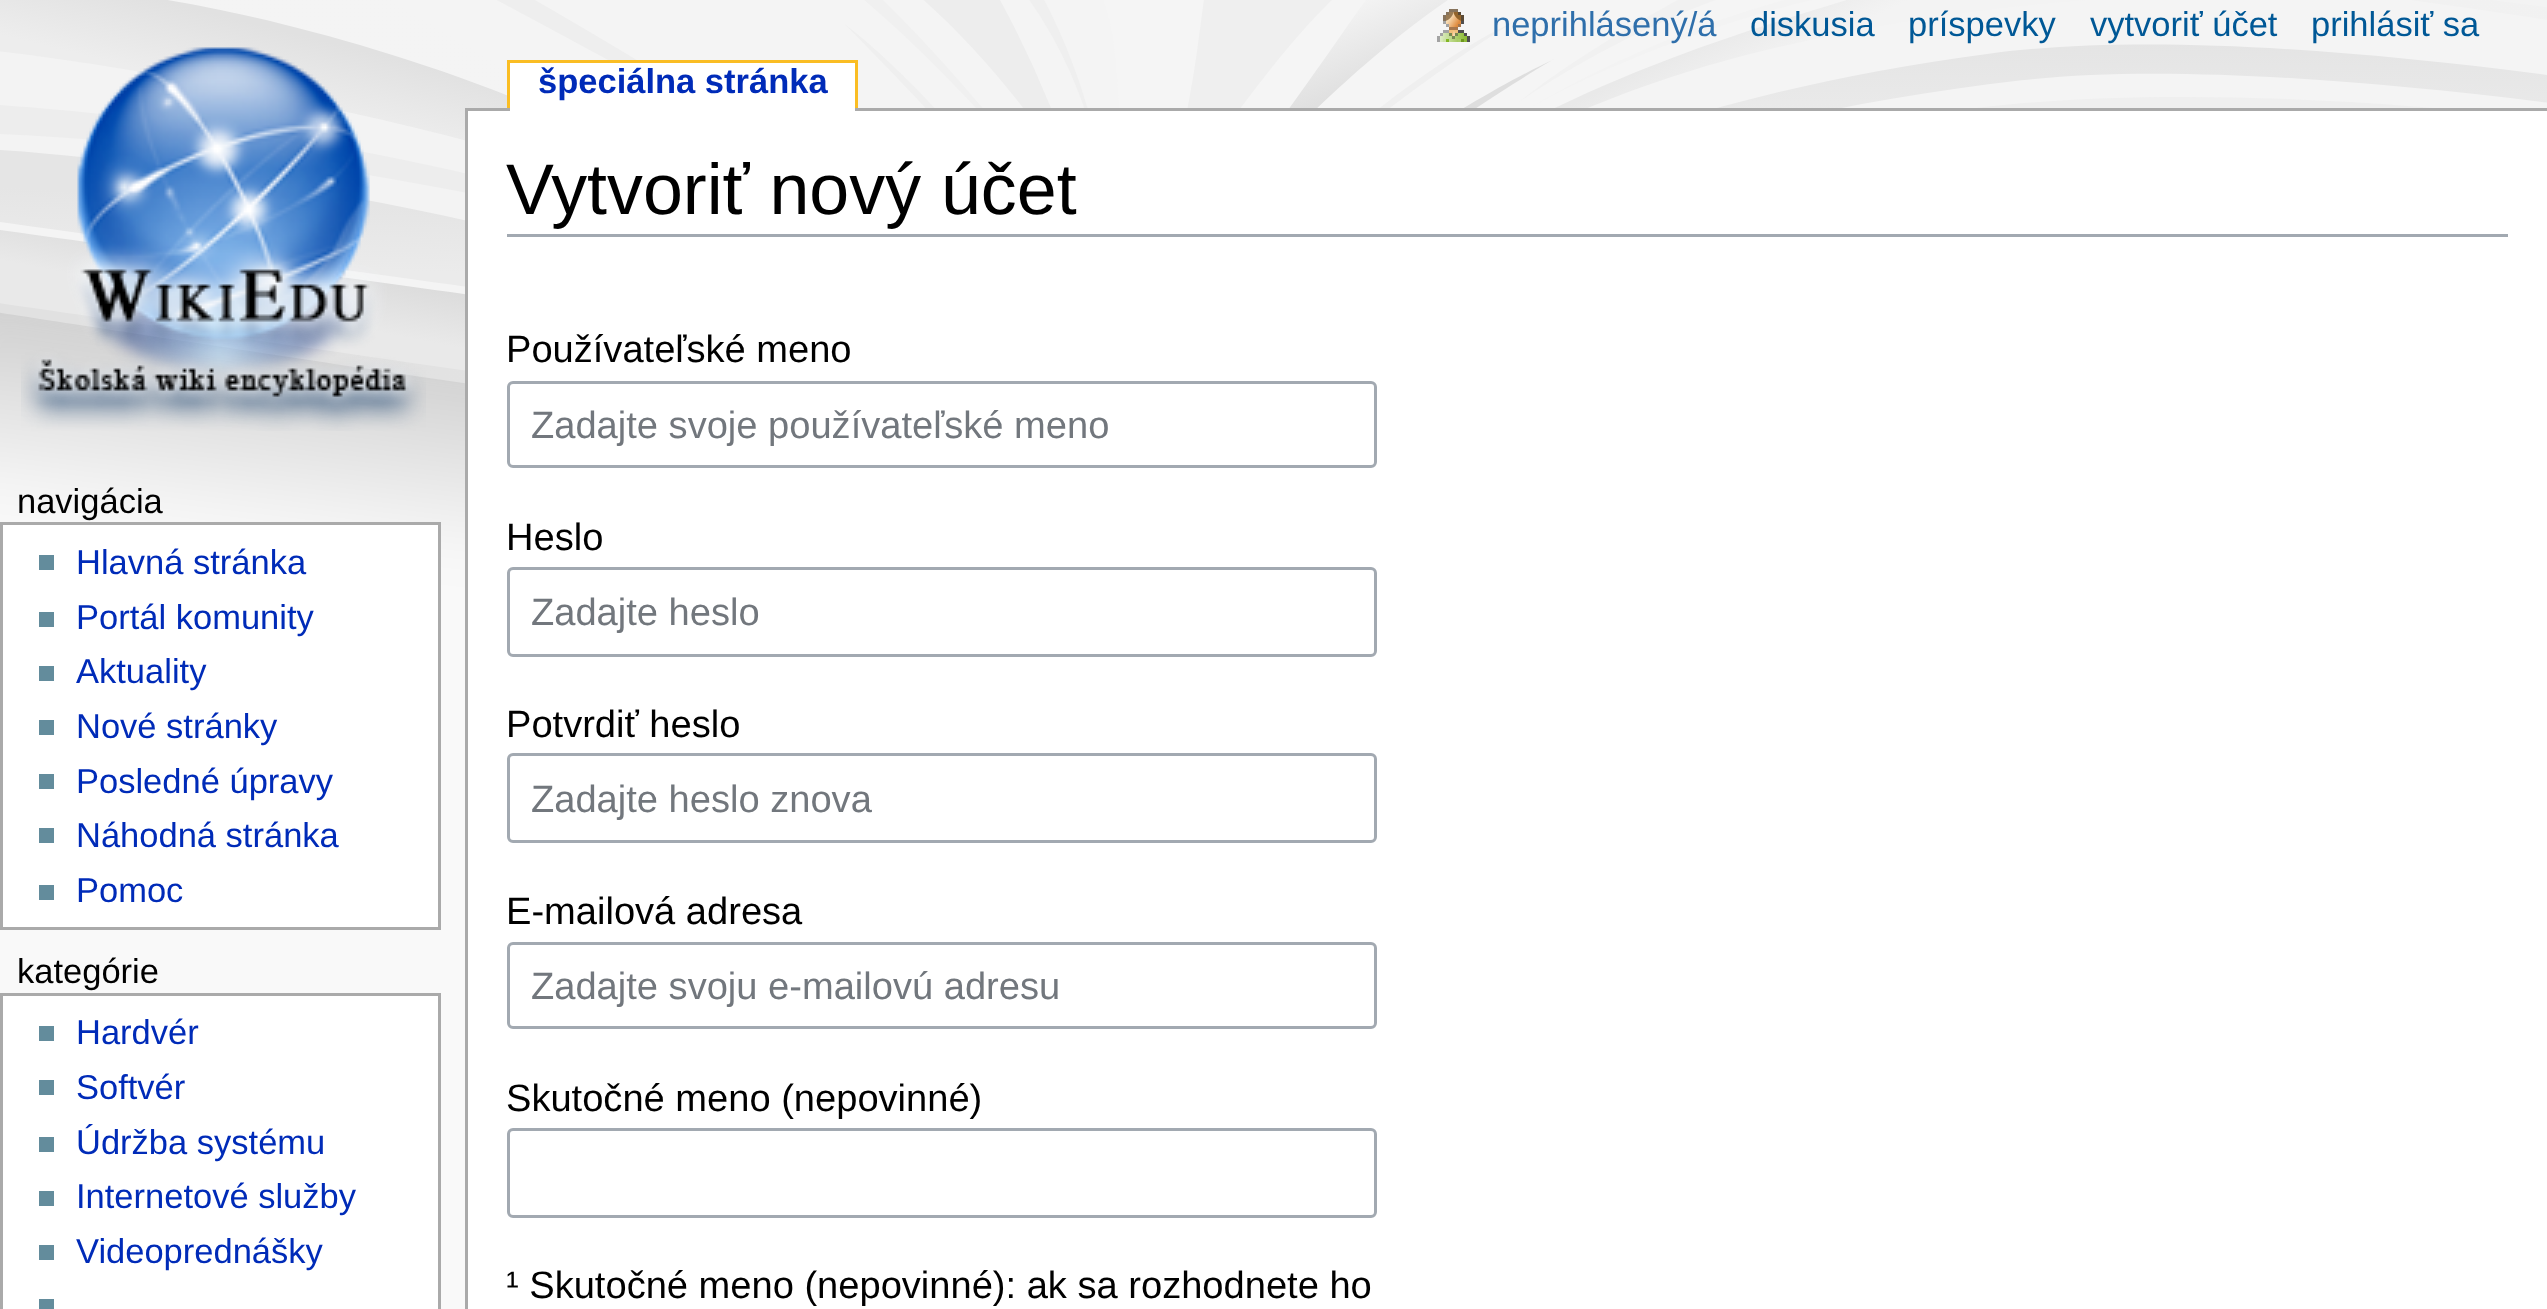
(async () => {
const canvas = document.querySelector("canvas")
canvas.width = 2547
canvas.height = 1309
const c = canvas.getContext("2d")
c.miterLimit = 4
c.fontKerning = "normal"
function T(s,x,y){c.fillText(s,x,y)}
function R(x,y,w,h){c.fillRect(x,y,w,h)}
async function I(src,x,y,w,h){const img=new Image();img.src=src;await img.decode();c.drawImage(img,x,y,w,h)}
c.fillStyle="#f9f9f9"
R(0,0,2547,1309)
await I("1.png",0,0,2547,629)
await I("2.png",1437,9,33,33)
c.font="34.5px Liberation Sans"
c.fillStyle="#2f6fab"
T("neprihlásený/á",1492,36)
c.fillStyle="#005896"
T("diskusia",1750,36)
T("príspevky",1908,36)
T("vytvoriť účet",2090,36)
T("prihlásiť sa",2311,36)
await I("3.png",21,47,405,384)
c.fillStyle="#aaa"
R(465,108,2082,3)
c.fillStyle="#fff"
R(510,63,345,48)
c.font="bold 34.5px Liberation Sans"
c.fillStyle="#002bb8"
T("špeciálna stránka",538,93)
c.fillStyle="#fabd23"
R(507,60,351,3)
R(855,60,3,48)
R(507,60,3,48)
c.font="34.5px Liberation Sans"
c.fillStyle="#000"
T("navigácia",17,513)
c.fillStyle="#fff"
c.beginPath()
c.rect(1.5,523.5,438,405)
c.fill()
c.strokeStyle="#aaa"
c.lineWidth=3
c.stroke()
c.fillStyle="#638c9c"
R(39,555,15,15)
c.fillStyle="#002bb8"
T("Hlavná stránka",76,574)
c.fillStyle="#638c9c"
R(39,612,15,15)
c.fillStyle="#002bb8"
T("Portál komunity",76,629)
c.fillStyle="#638c9c"
R(39,666,15,15)
c.fillStyle="#002bb8"
T("Aktuality",76,683)
c.fillStyle="#638c9c"
R(39,720,15,15)
c.fillStyle="#002bb8"
T("Nové stránky",76,738)
c.fillStyle="#638c9c"
R(39,774,15,15)
c.fillStyle="#002bb8"
T("Posledné úpravy",76,793)
c.fillStyle="#638c9c"
R(39,828,15,15)
c.fillStyle="#002bb8"
T("Náhodná stránka",76,847)
c.fillStyle="#638c9c"
R(39,885,15,15)
c.fillStyle="#002bb8"
T("Pomoc",76,902)
c.fillStyle="#000"
T("kategórie",17,983)
c.fillStyle="#fff"
c.beginPath()
c.rect(1.5,994.5,438,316)
c.fill()
c.stroke()
c.fillStyle="#638c9c"
R(39,1026,15,15)
c.fillStyle="#002bb8"
T("Hardvér",76,1044)
c.fillStyle="#638c9c"
R(39,1080,15,15)
c.fillStyle="#002bb8"
T("Softvér",76,1099)
c.fillStyle="#638c9c"
R(39,1137,15,15)
c.fillStyle="#002bb8"
T("Údržba systému",76,1154)
c.fillStyle="#638c9c"
R(39,1191,15,15)
c.fillStyle="#002bb8"
T("Internetové služby",76,1208)
c.fillStyle="#638c9c"
R(39,1245,15,15)
c.fillStyle="#002bb8"
T("Videoprednášky",76,1263)
c.fillStyle="#638c9c"
R(39,1299,15,10)
c.fillStyle="#fff"
R(468,111,2079,1198)
c.fillStyle="#aaa"
R(465,108,3,1201)
c.fillStyle="#a2a9b1"
R(507,234,2001,3)
c.font="71.75px Liberation Sans"
c.fillStyle="#000"
T("Vytvoriť nový účet",506,214)
c.font="38.1px Liberation Sans"
T("Používateľské meno",506,362)
c.beginPath()
c.roundRect(508.5,382.5,867,84,4.5)
c.strokeStyle="#a2a9b1"
c.stroke()
c.fillStyle="#72777d"
T("Zadajte svoje používateľské meno",531,438)
c.fillStyle="#000"
T("Heslo",506,550)
c.beginPath()
c.roundRect(508.5,568.5,867,87,4.5)
c.stroke()
c.fillStyle="#72777d"
T("Zadajte heslo",531,625)
c.fillStyle="#000"
T("Potvrdiť heslo",506,737)
c.beginPath()
c.roundRect(508.5,754.5,867,87,4.5)
c.stroke()
c.fillStyle="#72777d"
T("Zadajte heslo znova",531,812)
c.fillStyle="#000"
T("E-mailová adresa",506,924)
c.beginPath()
c.roundRect(508.5,943.5,867,84,4.5)
c.stroke()
c.fillStyle="#72777d"
T("Zadajte svoju e-mailovú adresu",531,999)
c.fillStyle="#000"
T("Skutočné meno (nepovinné)",506,1111)
c.beginPath()
c.roundRect(508.5,1129.5,867,87,4.5)
c.stroke()
T("¹ Skutočné meno (nepovinné): ak sa rozhodnete ho",506,1298)
})()
